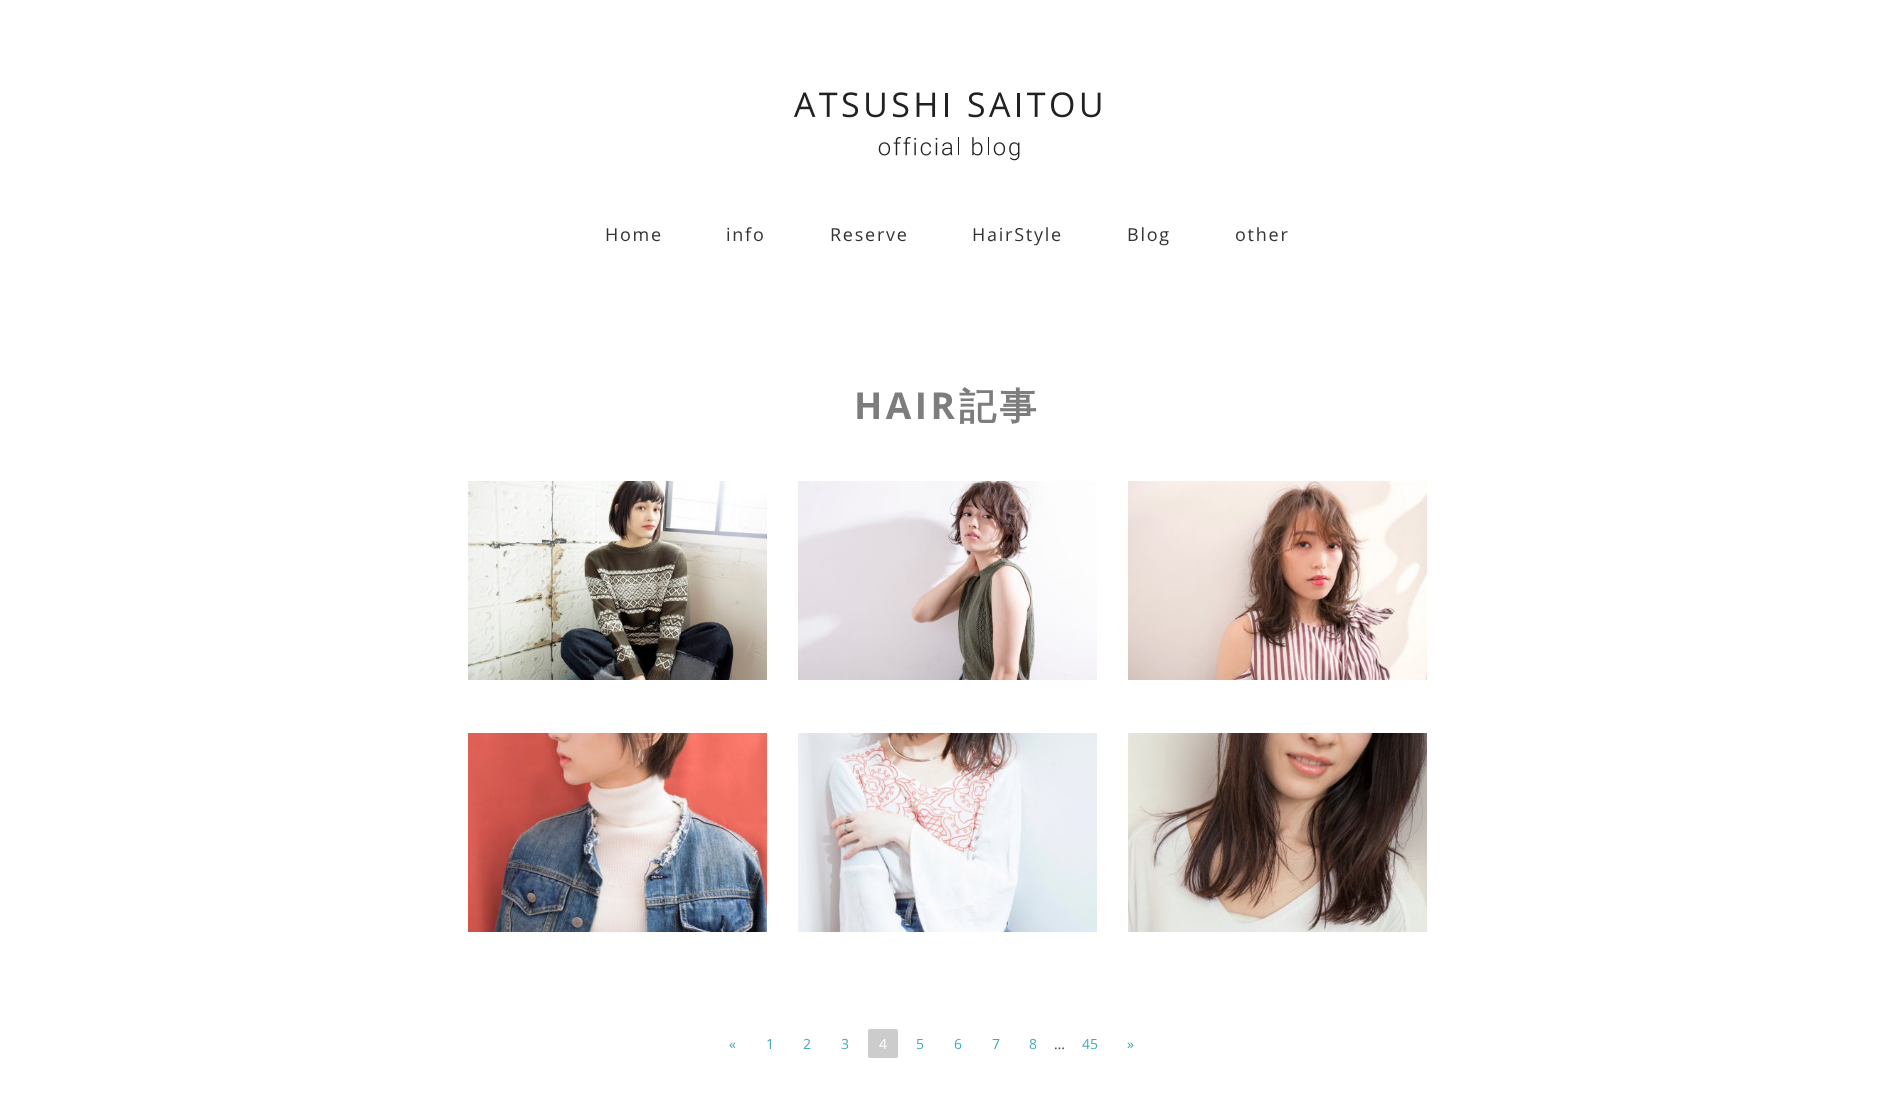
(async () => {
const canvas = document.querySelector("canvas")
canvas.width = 1894
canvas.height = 1111
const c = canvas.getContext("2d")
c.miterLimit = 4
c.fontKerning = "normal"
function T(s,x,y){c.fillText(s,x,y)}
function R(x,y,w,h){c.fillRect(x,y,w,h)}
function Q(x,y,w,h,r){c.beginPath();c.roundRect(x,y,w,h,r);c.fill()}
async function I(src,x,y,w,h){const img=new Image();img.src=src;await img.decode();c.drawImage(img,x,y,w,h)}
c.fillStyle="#fff"
R(0,0,1894,1111)
await I("1.png",794,92,307,69)
c.letterSpacing="1.75px"
c.font="18px Open Sans"
c.fillStyle="#333"
T("Home",605,241)
T("info",726,241)
T("Reserve",830,241)
T("HairStyle",972,241)
T("Blog",1127,241)
T("other",1235,241)
c.letterSpacing="3.5px"
c.font="bold 37px Open Sans"
c.fillStyle="#7d7d7d"
T("HAIR",854,419)
c.font="bold 37px WenQuanYi Zen Hei"
T("記事",959,419)
await I("2.png",468,481,299,199)
await I("3.png",798,481,299,199)
await I("4.png",1128,481,299,199)
await I("5.png",468,733,299,199)
await I("6.png",798,733,299,199)
await I("7.png",1128,733,299,199)
c.letterSpacing="0px"
c.font="14px Open Sans"
c.fillStyle="#45aab8"
T("«",729,1049)
T("1",766,1049)
T("2",803,1049)
T("3",841,1049)
c.fillStyle="#ccc"
Q(868,1029,30,29,2)
c.fillStyle="#fff"
T("4",879,1049)
c.fillStyle="#45aab8"
T("5",916,1049)
T("6",954,1049)
T("7",992,1049)
T("8",1029,1049)
c.fillStyle="#444"
T("…",1054,1049)
c.fillStyle="#45aab8"
T("45",1082,1049)
T("»",1127,1049)
})()
